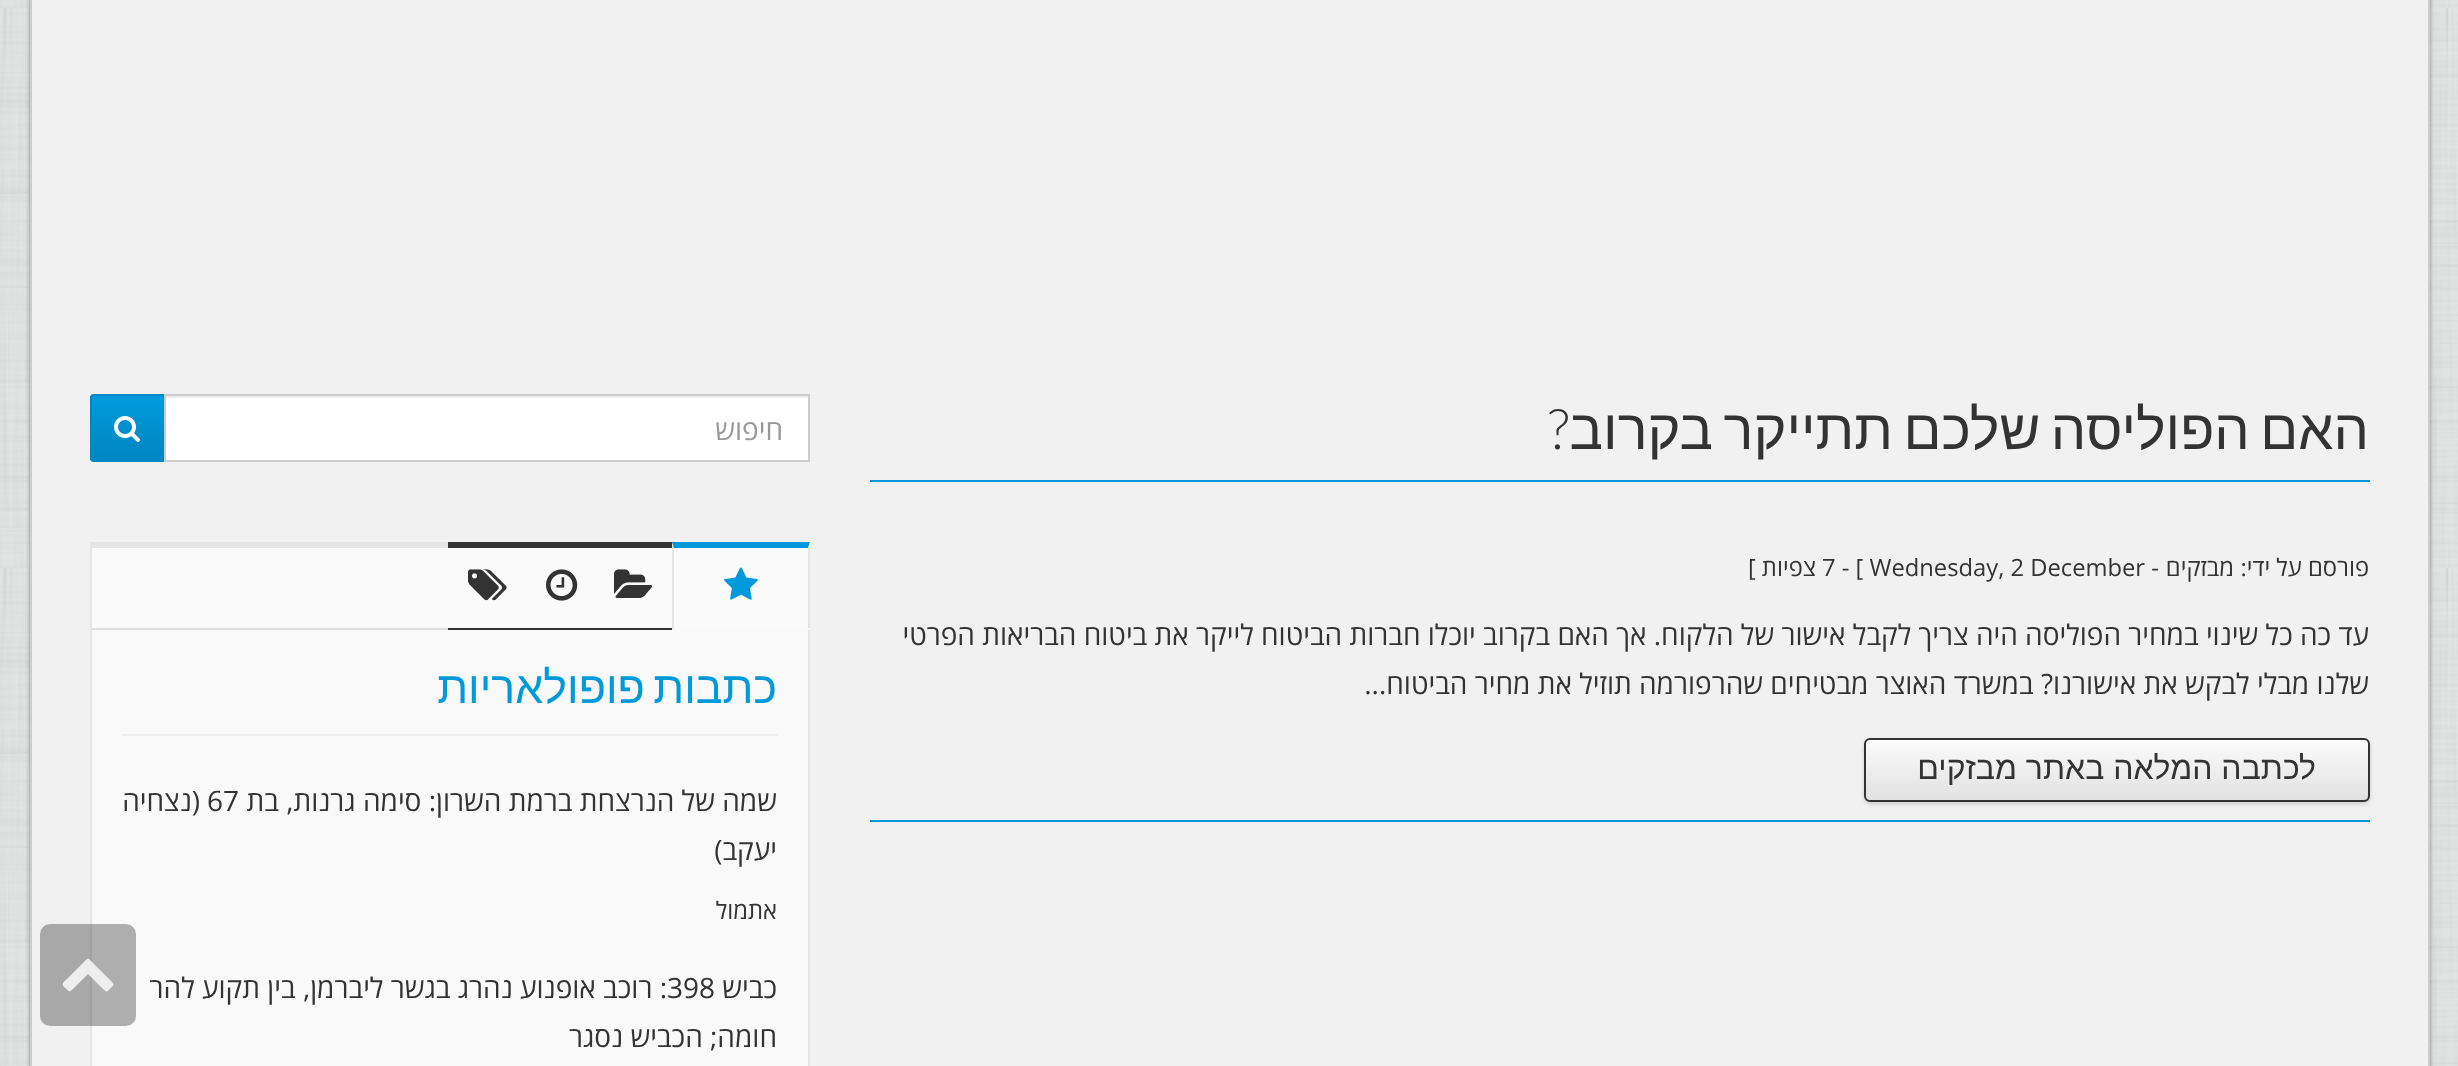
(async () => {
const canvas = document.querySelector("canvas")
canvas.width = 2458
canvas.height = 1066
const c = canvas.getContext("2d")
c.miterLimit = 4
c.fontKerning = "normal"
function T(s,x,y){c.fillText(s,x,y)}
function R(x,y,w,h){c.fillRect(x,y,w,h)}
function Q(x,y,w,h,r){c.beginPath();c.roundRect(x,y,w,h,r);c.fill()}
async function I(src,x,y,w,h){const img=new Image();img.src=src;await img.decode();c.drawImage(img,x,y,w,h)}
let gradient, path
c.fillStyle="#fff"
R(0,0,2458,1066)
await I("1.png",0,0,2458,1066)
c.fillStyle="#00000066"
c.filter="blur(2px)"
c.beginPath()
c.rect(30,-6,2400,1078)
c.fill()
c.filter="none"
c.fillStyle="#ccc"
R(2428,0,2,1066)
R(30,0,2,1066)
c.fillStyle="#f1f1f1"
R(32,0,2396,1066)
c.fillStyle="#0099da"
R(870,480,1500,2)
c.wordSpacing="-5px"
c.direction="rtl"
c.font="56px Liberation Sans"
c.fillStyle="#333"
T("האם הפוליסה שלכם תתייקר בקרוב",2369,449)
c.wordSpacing="0px"
c.font="300 56px Lato"
T("?",1569,449)
c.font="23.75px Open Sans"
T("פורסם על ידי:",2369,576)
T("מבזקים",2234,576)
c.direction="ltr"
T("7 - [ Wednesday, 2 December -",1822,576)
c.direction="rtl"
T("צפיות ]",1816,576)
c.font="28px Open Sans"
T("עד כה כל שינוי במחיר הפוליסה היה צריך לקבל אישור של הלקוח. אך האם בקרוב יוכלו חברות הביטוח לייקר את ביטוח הבריאות הפרטי",2369,645)
T("שלנו מבלי לבקש את אישורנו? במשרד האוצר מבטיחים שהרפורמה תוזיל את מחיר הביטוח...",2369,694)
c.fillStyle="#0099da"
R(870,820,1500,2)
c.fillStyle="#00000026"
c.filter="blur(2px)"
c.beginPath()
c.roundRect(1864,740,506,64,6)
c.fill()
c.filter="none"
c.save()
c.beginPath()
c.roundRect(1864,738,506,64,6)
c.clip()
gradient = c.createLinearGradient(2117,740,2117,800)
gradient.addColorStop(0,"#fbfbfb")
gradient.addColorStop(1,"#e1e1e1")
c.fillStyle = gradient
R(1864,740,506,60)
c.restore()
c.fillStyle="#fdfdfd"
path = new Path2D("M1870 742h494c2 0 4 2 4 4c0-3 0-6-4-6h-494c-4 0-4 3-4 6c0-2 2-4 4-4z")
c.fill(path)
c.beginPath()
c.roundRect(1865,739,504,62,5)
c.strokeStyle="#333"
c.lineWidth=2
c.stroke()
c.font="32px Liberation Sans"
c.fillStyle="#333"
T("לכתבה המלאה באתר מבזקים",2316,779)
c.fillStyle="#fff"
R(166,398,642,62)
c.fillStyle="#ececec"
R(166,396,642,2)
gradient = c.createLinearGradient(128,396,128,460)
gradient.addColorStop(.05,"#0099da")
gradient.addColorStop(1,"#0087c1")
c.fillStyle = gradient
R(90,396,74,64)
c.beginPath()
c.roundRect(91,395,74,66,[3,0,0,3])
c.strokeStyle="#0087c1"
c.stroke()
c.strokeStyle="#ccc"
c.strokeRect(165,395,644,66)
c.font="28px Open Sans"
c.fillStyle="#999"
T("חיפוש",783,440)
await I("2.png",114,416,26,26)
c.fillStyle="#fafafa"
R(92,548,716,80)
c.fillStyle="#e5e5e5"
R(90,542,720,6)
c.fillStyle="#ddd"
R(90,628,358,2)
c.fillStyle="#e5e5e5"
R(90,542,2,524)
c.fillStyle="#333"
R(448,542,226,6)
c.fillStyle="#0099da"
path = new Path2D("M672 542h138l-2 6h-134z")
c.fill(path)
c.fillStyle="#e5e5e5"
path = new Path2D("M810 542v88l-2-2v-80z")
c.fill(path)
c.fillStyle="#333"
R(448,628,226,2)
c.fillStyle="#f9f9f9"
R(672,628,138,2)
c.fillStyle="#e5e5e5"
path = new Path2D("M672 630v-88l2 6v80z")
c.fill(path)
await I("3.png",724,567,34,33)
await I("4.png",614,569,39,29)
await I("5.png",546,569,32,32)
await I("6.png",468,569,39,32)
c.fillStyle="#f9f9f9"
R(92,630,716,436)
c.fillStyle="#e5e5e5"
R(808,630,2,436)
c.fillStyle="#eee"
R(122,734,656,2)
c.wordSpacing="-4px"
c.font="44.75px Liberation Sans"
c.fillStyle="#0099da"
T("כתבות פופולאריות",777,703)
c.wordSpacing="0px"
c.font="28px Open Sans"
c.fillStyle="#333"
T("שמה של הנרצחת ברמת השרון: סימה גרנות, בת",777,811)
c.direction="ltr"
T("67",207,811)
c.direction="rtl"
T("(נצחיה",200,811)
T("יעקב)",777,860)
c.font="23.75px Open Sans"
T("אתמול",777,919)
c.font="28px Open Sans"
T("כביש",777,998)
c.direction="ltr"
T("398",667,998)
c.direction="rtl"
T(": רוכב אופנוע נהרג בגשר ליברמן, בין תקוע להר",667,998)
T("חומה; הכביש נסגר",777,1047)
c.fillStyle="#0000004d"
Q(40,924,96,102,10)
c.fillStyle="#eee"
path = new Path2D("M113 986c-6 5-5 8-11 2l-14-14l-14 14c-5 5-4 4-10-1c-3-4 0-5 3-8l16-16c6-6 4-6 10 0l16 16c0 1 6 4 4 7z")
c.fill(path)
})()
